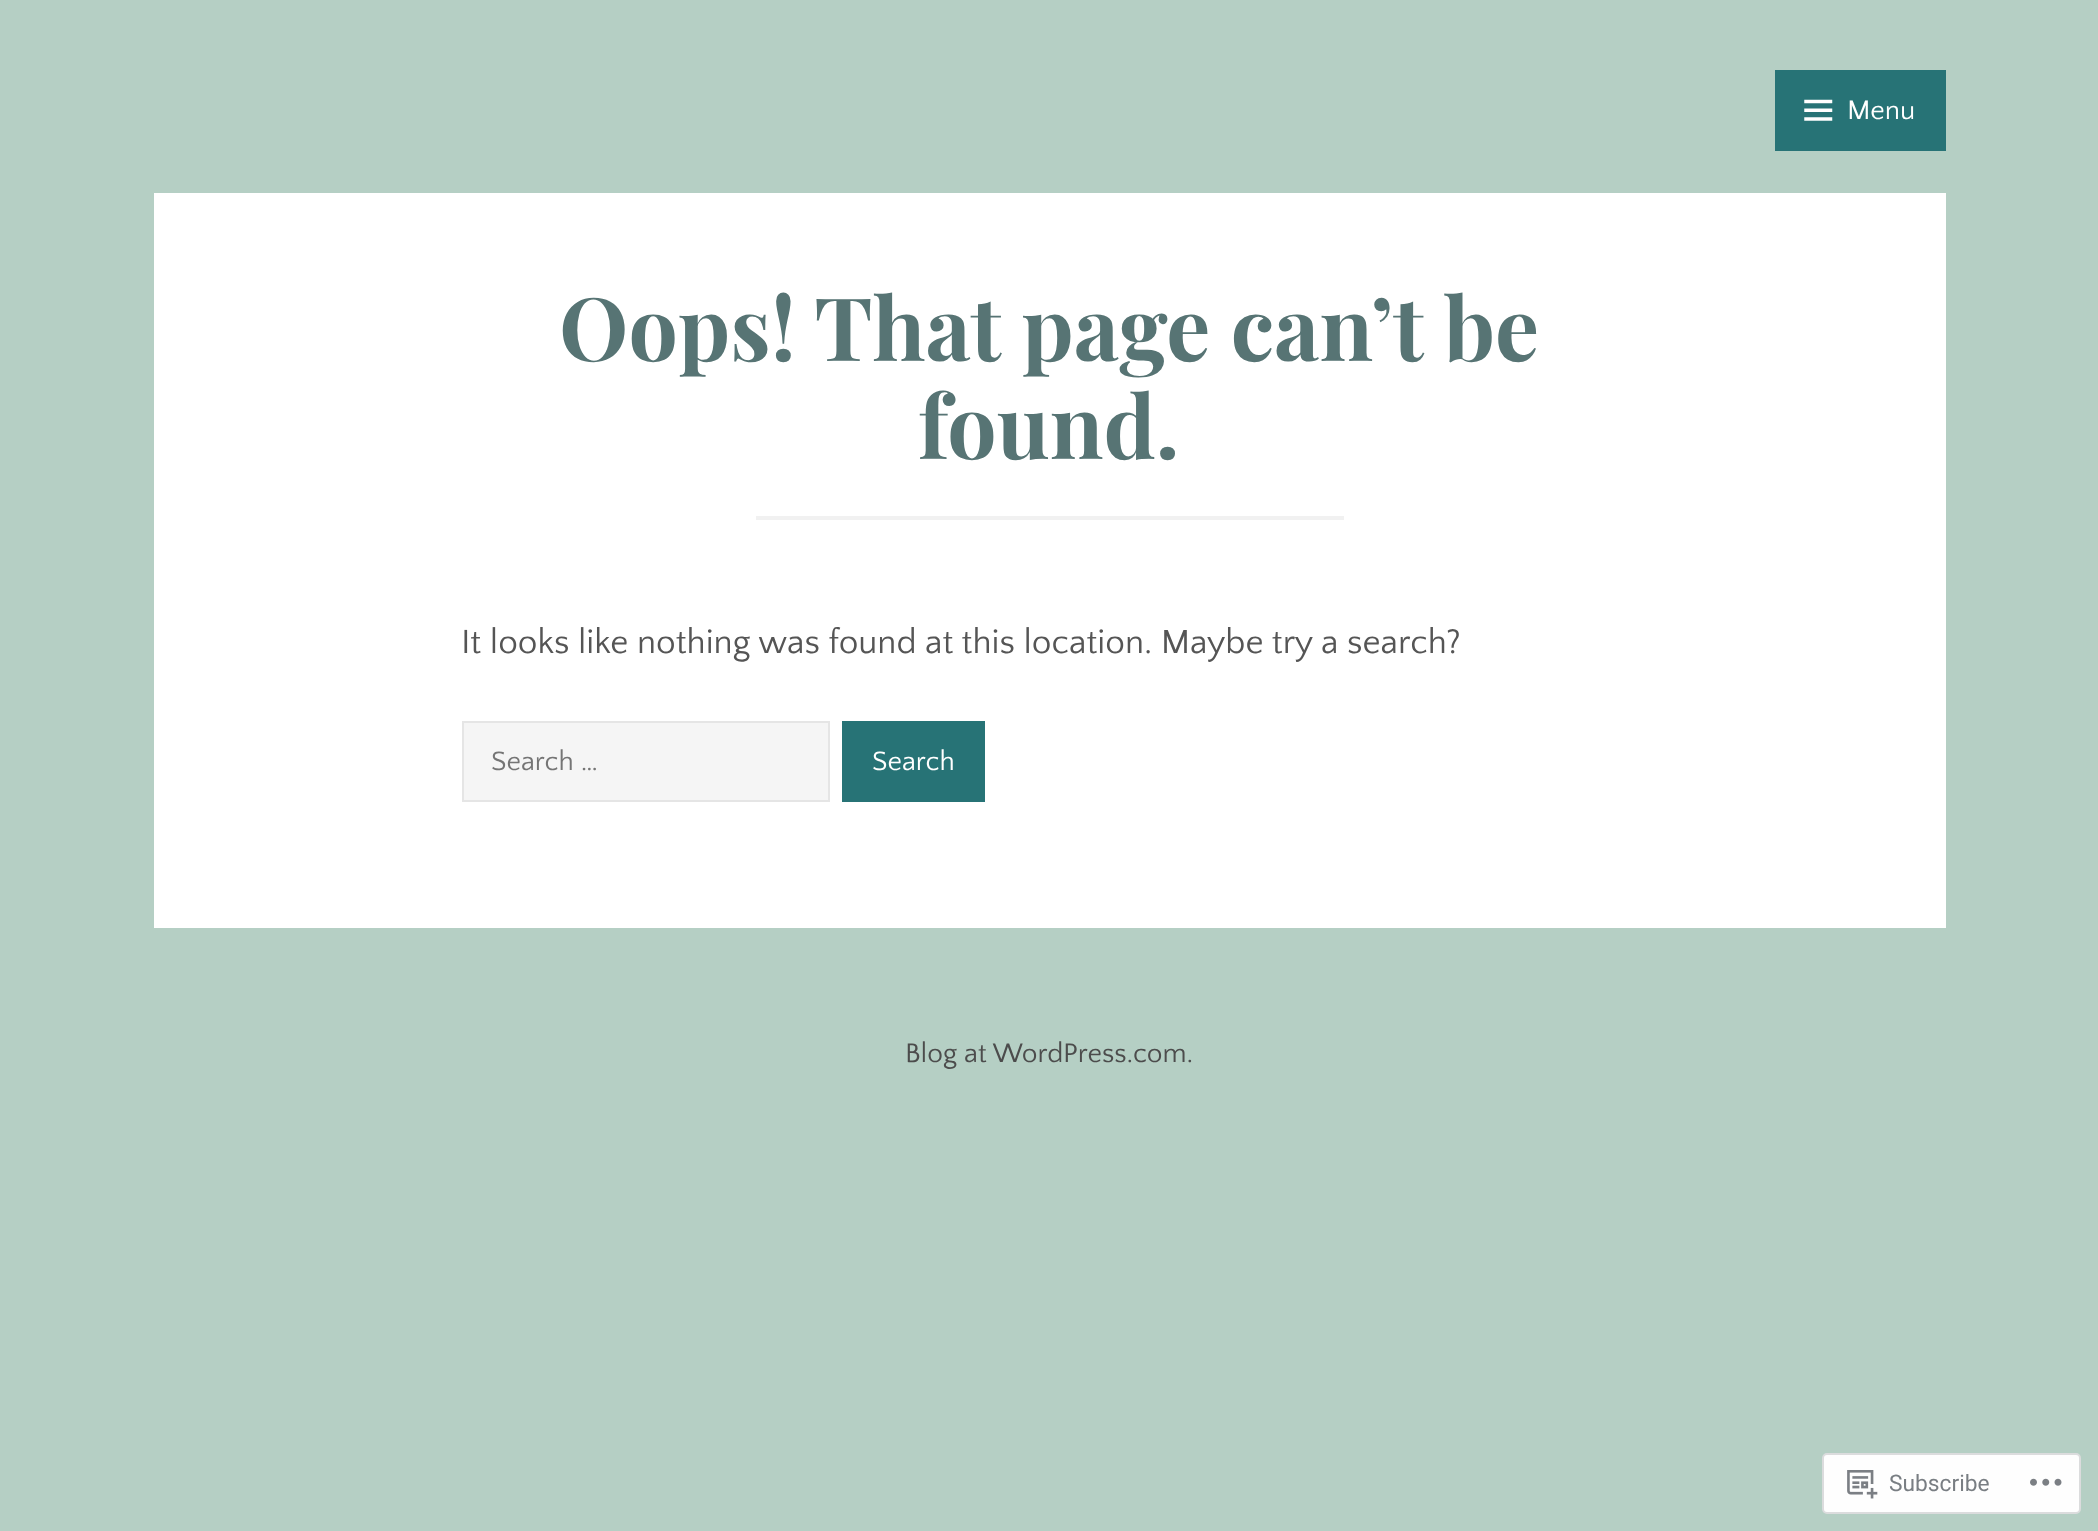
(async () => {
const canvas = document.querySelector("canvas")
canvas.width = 2098
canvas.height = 1531
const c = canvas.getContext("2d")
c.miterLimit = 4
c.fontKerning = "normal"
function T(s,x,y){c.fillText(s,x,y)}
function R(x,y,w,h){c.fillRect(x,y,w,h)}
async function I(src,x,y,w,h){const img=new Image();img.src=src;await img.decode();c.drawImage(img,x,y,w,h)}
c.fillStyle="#b5cfc4"
R(0,0,2098,1531)
c.fillStyle="#277376"
R(1775,70,171,81)
await I("1.png",1804,99,29,22)
c.font="28px Quattrocento Sans"
c.fillStyle="#fff"
T("Menu",1847,119)
R(154,193,1792,735)
c.font="bold 87.5px Playfair Display"
c.fillStyle="#577474"
T("Oops! That page can’t be",559,361)
T("found.",918,459)
c.fillStyle="#f1f1f1"
R(756,516,588,4)
c.font="35px Quattrocento Sans"
c.fillStyle="#555"
T("It looks like nothing was found at this location. Maybe try a search?",461,653)
c.fillStyle="#f5f5f5"
c.beginPath()
c.rect(463,722,366,79)
c.fill()
c.strokeStyle="#e5e5e5"
c.lineWidth=2
c.stroke()
c.font="28px Quattrocento Sans"
c.fillStyle="#757575"
T("Search …",491,770)
c.fillStyle="#277376"
R(842,721,143,81)
c.fillStyle="#fff"
T("Search",872,770)
c.fillStyle="#4c4c4c"
T("Blog at WordPress.com.",905,1062)
c.fillStyle="#fefefe"
c.beginPath()
c.roundRect(1823,1454,257,59,4)
c.fill()
c.strokeStyle="#dbdcdd"
c.stroke()
await I("2.png",1847,1470,31,29)
c.font="22.75px Roboto"
c.fillStyle="#797e83"
T("Subscribe",1889,1491)
await I("3.png",2030,1478,32,8)
})()
